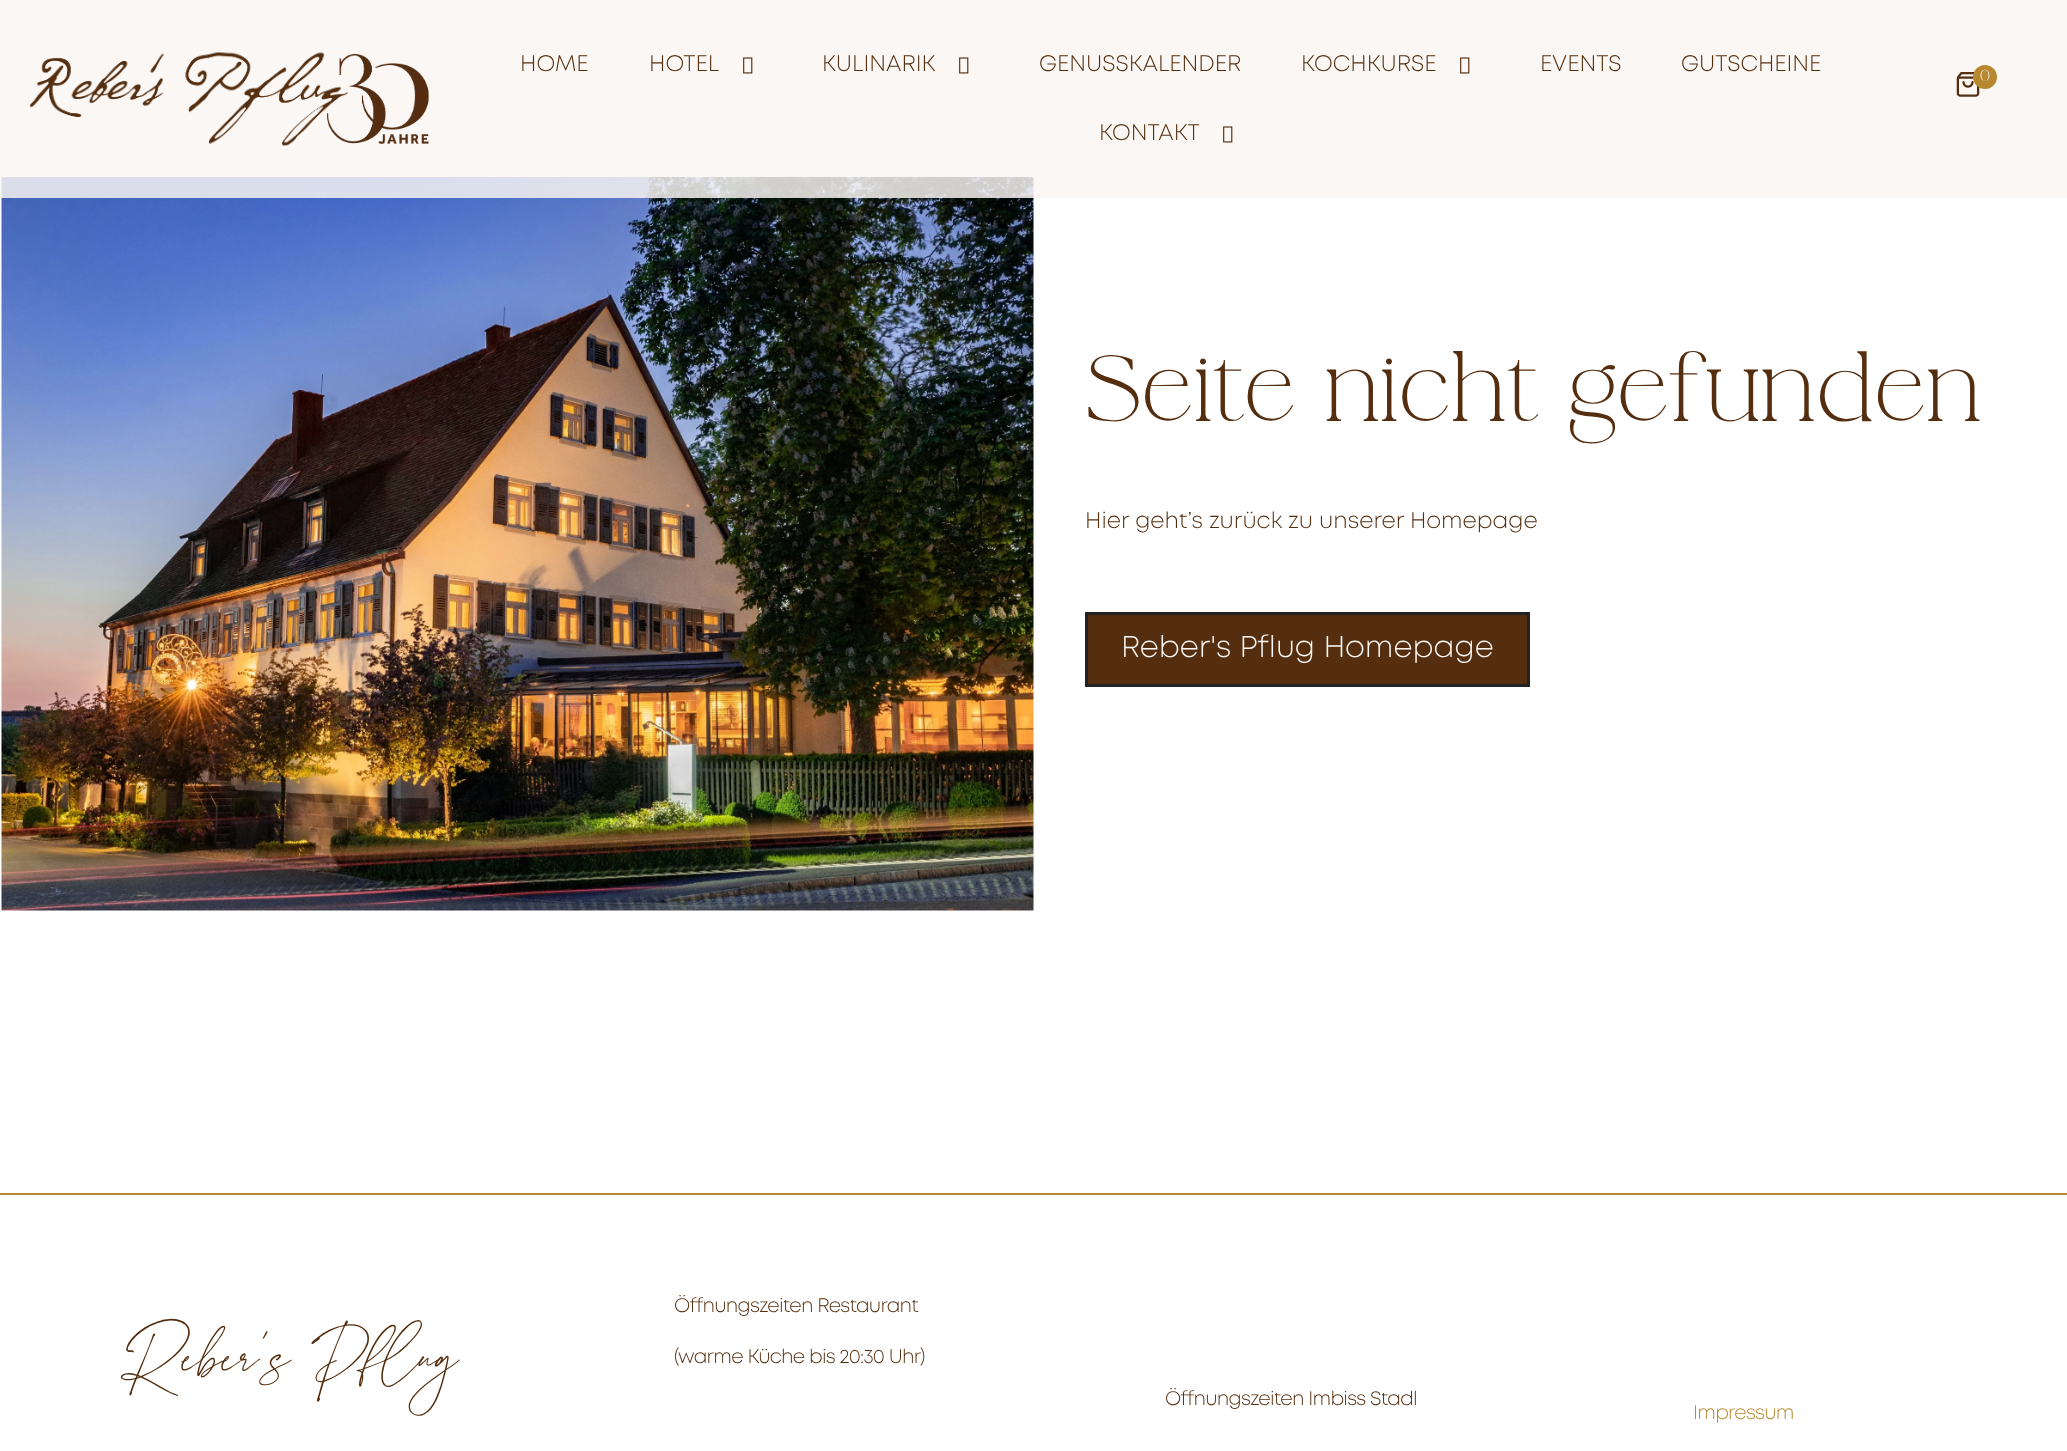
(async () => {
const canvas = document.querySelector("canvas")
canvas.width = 2067
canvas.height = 1451
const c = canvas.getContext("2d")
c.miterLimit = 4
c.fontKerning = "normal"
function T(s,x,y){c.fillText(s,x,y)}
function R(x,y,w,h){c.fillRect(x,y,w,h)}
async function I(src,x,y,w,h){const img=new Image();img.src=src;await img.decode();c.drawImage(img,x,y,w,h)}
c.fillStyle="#fff"
R(0,0,2067,1451)
await I("5.png",1,177,1033,734)
c.fillStyle="#f9f6f3d6"
R(0,0,2067,198)
await I("1.png",30,52,318,94)
await I("2.png",327,54,102,90)
c.font="300 22.5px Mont"
c.fillStyle="#552e0f"
T("HOME",520,71)
T("HOTEL",649,71)
await I("3.png",743,57,10,17)
T("KULINARIK",822,71)
await I("3.png",959,57,10,17)
T("GENUSSKALENDER",1039,71)
T("KOCHKURSE",1301,71)
await I("3.png",1460,57,10,17)
T("EVENTS",1540,71)
T("GUTSCHEINE",1681,71)
T("KONTAKT",1099,140)
await I("3.png",1223,126,10,17)
await I("4.png",1956,72,24,25)
c.fillStyle="#b7882f"
c.beginPath()
c.arc(1985,77,12,0,7)
c.fill()
c.font="14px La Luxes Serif"
c.fillStyle="#f9f6f3"
T("0",1980,81)
c.letterSpacing="-0.75px"
c.font="81.9px La Luxes Serif"
c.fillStyle="#552e0f"
T("Seite nicht gefunden",1085,421)
c.letterSpacing="0px"
c.font="300 22.5px Mont"
T("Hier geht’s zurück zu unserer Homepage",1085,528)
c.beginPath()
c.rect(1086.5,613.5,442,72)
c.fill()
c.strokeStyle="#232323"
c.lineWidth=3
c.stroke()
c.font="300 30px Mont"
c.fillStyle="#f9f6f3"
T("Reber's Pflug Homepage",1121,657)
c.fillStyle="#b7882f"
R(0,1193,2067,2)
c.letterSpacing="-0.75px"
c.font="81.9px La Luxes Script"
c.fillStyle="#552e0f"
T("Reber's Pflug",124,1385)
c.font="300 19.5px Mont"
T("Öffnungszeiten Restaurant",674,1312)
T("(warme Küche bis 20:30 Uhr)",674,1363)
T("Öffnungszeiten Imbiss Stadl",1165,1405)
c.fillStyle="#b7882f"
T("Impressum",1693,1419)
})()
